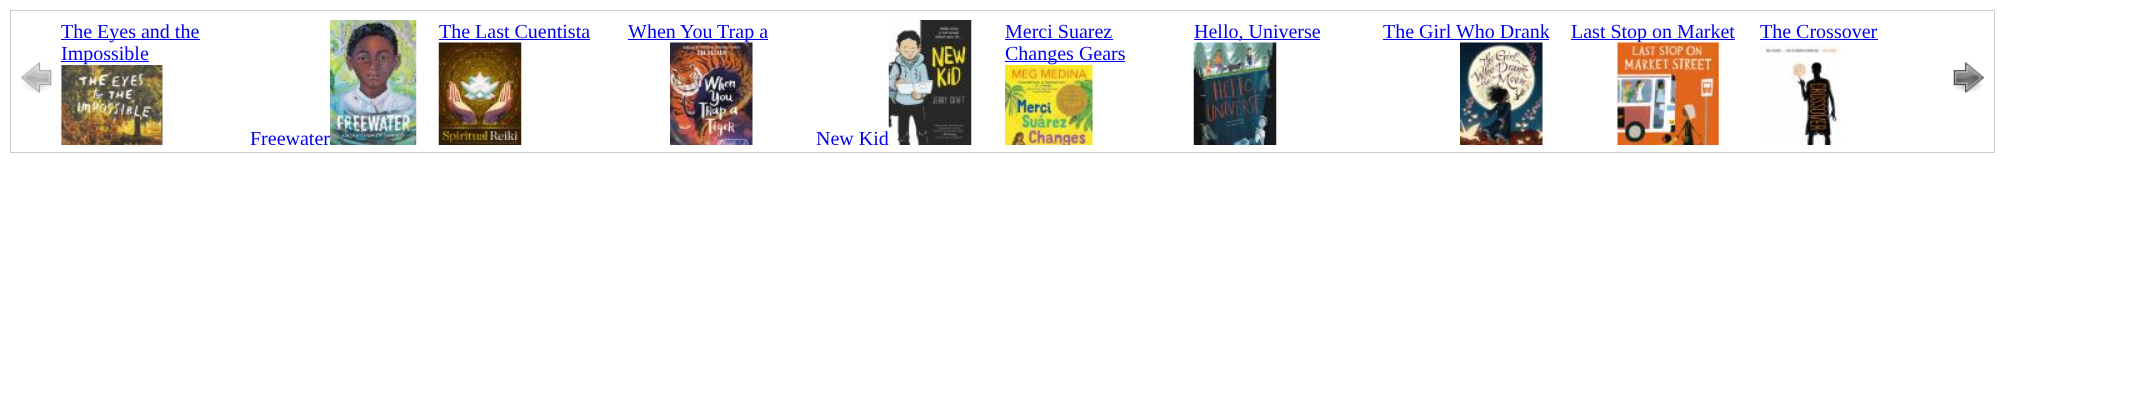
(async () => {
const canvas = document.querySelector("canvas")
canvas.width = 2135
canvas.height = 407
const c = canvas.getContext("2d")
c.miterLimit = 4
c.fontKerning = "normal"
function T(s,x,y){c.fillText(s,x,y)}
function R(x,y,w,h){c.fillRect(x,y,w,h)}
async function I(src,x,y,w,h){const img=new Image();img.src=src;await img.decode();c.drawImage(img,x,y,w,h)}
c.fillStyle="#fff"
R(0,0,2135,407)
c.strokeStyle="#ccc"
c.strokeRect(10.5,10.5,1984,142)
await I("1.png",21,62,31,31)
c.fillStyle="#00e"
R(61,39,139,1)
c.font="20px Liberation Serif"
T("The Eyes and the",61,38)
R(61,61,88,1)
T("Impossible",61,60)
await I("2.png",61,65,102,80)
T("The Last Cuentista",439,38)
R(439,39,151,1)
await I("3.png",438,42,84,103)
R(628,39,140,1)
T("When You Trap a",628,38)
await I("4.png",670,42,83,103)
T("Merci Suarez",1005,38)
R(1005,39,108,1)
R(1005,61,120,1)
T("Changes Gears",1005,60)
await I("5.png",1005,65,88,80)
R(1194,39,126,1)
T("Hello, Universe",1194,38)
await I("6.png",1193,42,84,103)
T("The Girl Who Drank",1383,38)
R(1383,39,166,1)
await I("7.png",1460,42,83,103)
R(1571,39,164,1)
T("Last Stop on Market",1571,38)
await I("8.png",1617,42,102,103)
T("The Crossover",1760,38)
R(1760,39,118,1)
await I("9.png",1760,42,81,103)
c.save()
c.beginPath()
c.rect(61,20,1883,125)
c.clip()
T("Freewater",250,145)
c.restore()
await I("10.png",330,20,87,125)
c.save()
c.beginPath()
c.rect(61,20,1883,125)
c.clip()
T("New Kid",816,145)
c.restore()
await I("11.png",888,20,84,125)
await I("12.png",1953,62,31,31)
})()
